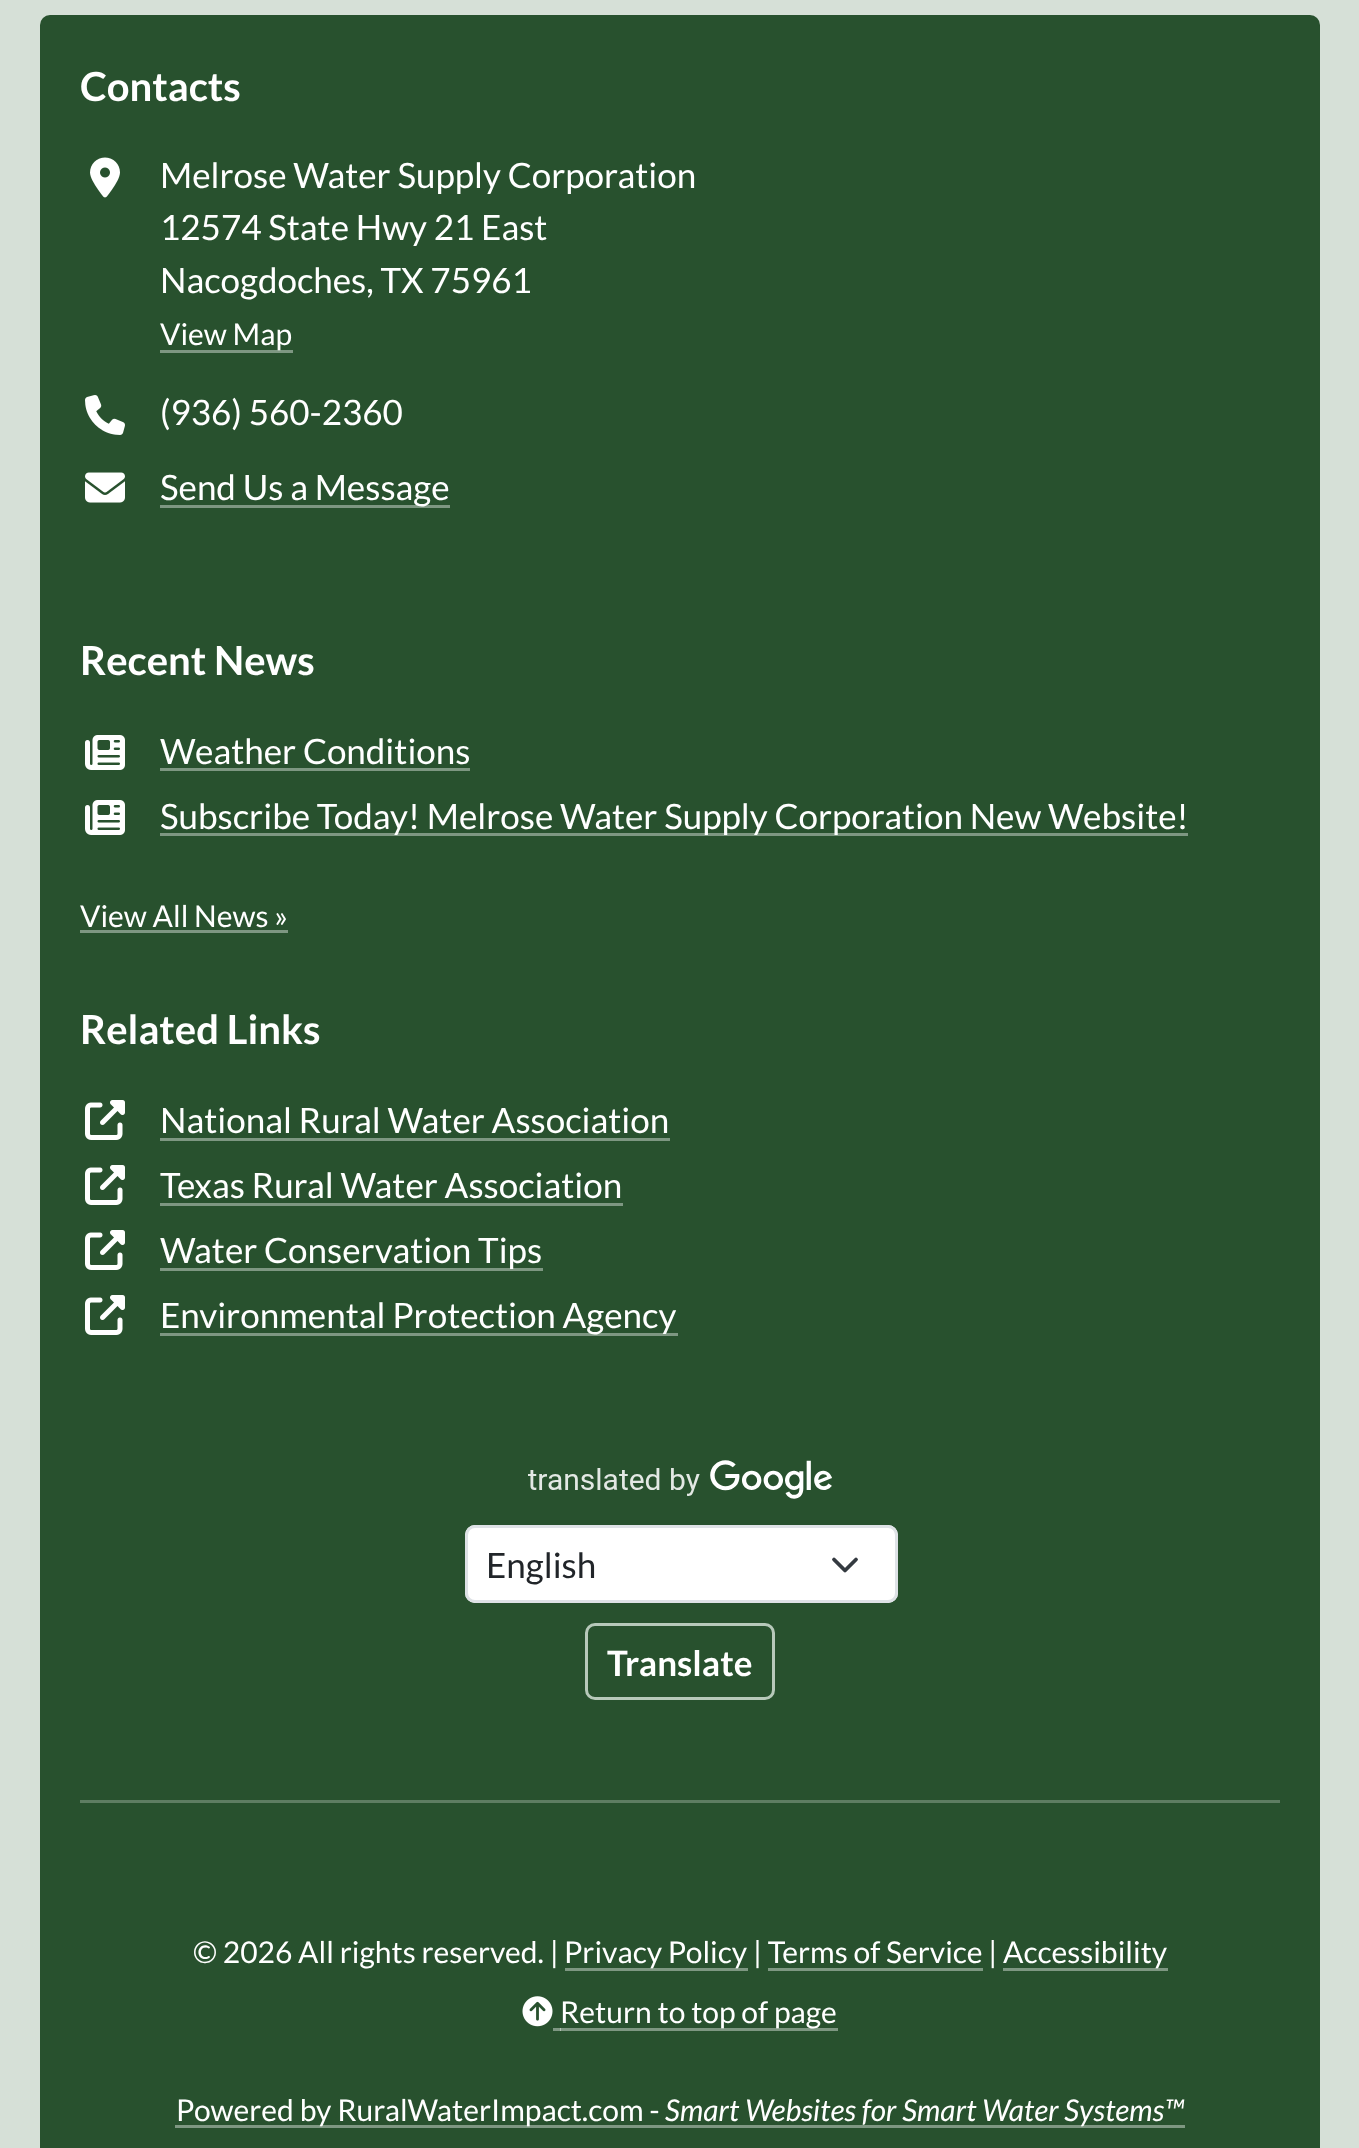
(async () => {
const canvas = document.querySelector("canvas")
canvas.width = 1359
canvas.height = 2148
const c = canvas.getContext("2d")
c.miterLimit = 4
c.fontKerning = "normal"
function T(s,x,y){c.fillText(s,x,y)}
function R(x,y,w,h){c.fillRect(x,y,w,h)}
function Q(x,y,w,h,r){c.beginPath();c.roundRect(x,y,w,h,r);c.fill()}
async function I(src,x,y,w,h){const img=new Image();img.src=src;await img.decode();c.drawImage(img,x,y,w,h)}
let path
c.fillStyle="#d6e0d7"
R(0,0,1359,2148)
c.fillStyle="#28512e"
Q(40,15,1280,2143,10)
c.fillStyle="#7e9782"
R(553,2028,285,3)
c.font="bold 40px Lato"
c.fillStyle="#fff"
T("Contacts",80,101)
await I("1.png",90,157,30,41)
c.font="35px Lato"
T("Melrose Water Supply Corporation",160,188)
T("12574 State Hwy 21 East",160,240)
T("Nacogdoches, TX 75961",160,293)
c.fillStyle="#7e9782"
R(160,350,133,3)
c.font="30px Lato"
c.fillStyle="#fff"
T("View Map",160,345)
await I("2.png",85,395,40,40)
c.font="35px Lato"
T("(936) 560-2360",160,425)
await I("3.png",85,472,40,31)
c.fillStyle="#7e9782"
R(160,505,290,3)
c.fillStyle="#fff"
T("Send Us a Message",160,500)
c.font="bold 40px Lato"
T("Recent News",80,675)
await I("4.png",85,735,40,35)
c.font="35px Lato"
T("Weather Conditions",160,764)
c.fillStyle="#7e9782"
R(160,768,310,3)
await I("4.png",85,800,40,35)
R(160,833,1028,3)
c.fillStyle="#fff"
T("Subscribe Today! Melrose Water Supply Corporation New Website!",160,829)
c.font="30px Lato"
T("View All News »",80,927)
c.fillStyle="#7e9782"
R(80,930,208,3)
c.font="bold 40px Lato"
c.fillStyle="#fff"
T("Related Links",80,1044)
await I("5.png",85,1100,40,40)
c.font="35px Lato"
T("National Rural Water Association",160,1133)
c.fillStyle="#7e9782"
R(160,1138,510,3)
await I("5.png",85,1165,40,40)
c.fillStyle="#fff"
T("Texas Rural Water Association",160,1198)
c.fillStyle="#7e9782"
R(160,1203,463,3)
await I("5.png",85,1230,40,40)
R(160,1268,383,3)
c.fillStyle="#fff"
T("Water Conservation Tips",160,1263)
await I("5.png",85,1295,40,40)
c.fillStyle="#7e9782"
R(160,1333,518,3)
c.fillStyle="#fff"
T("Environmental Protection Agency",160,1328)
await I("6.png",528,1460,304,39)
Q(465,1525,433,78,10)
path = new Path2D("M834 1559.5l11 11l11-11")
c.strokeStyle="#343a40"
c.lineWidth=3.8
c.lineCap="round"
c.lineJoin="round"
c.stroke(path)
c.beginPath()
c.roundRect(466.5,1526.5,430,75,8.5)
c.strokeStyle="#dee2e6"
c.lineWidth=3
c.lineJoin="miter"
c.stroke()
c.fillStyle="#212529"
T("English",486,1578)
c.beginPath()
c.roundRect(586.5,1624.5,187,74,8.5)
c.strokeStyle="#b7c9ba"
c.stroke()
c.font="bold 35px Lato"
c.fillStyle="#fff"
T("Translate",607,1676)
c.fillStyle="#5e7d62"
R(80,1800,1200,3)
c.font="30px Lato"
c.fillStyle="#fff"
T("© 2026 All rights reserved. |",193,1963)
c.fillStyle="#7e9782"
R(565,1968,183,3)
c.fillStyle="#fff"
T("Privacy Policy | Terms of Service |",564,1963)
c.fillStyle="#7e9782"
R(1003,1968,165,3)
c.fillStyle="#fff"
T("Accessibility",1003,1963)
c.fillStyle="#7e9782"
R(768,1968,215,3)
await I("7.png",522,1996,31,31)
c.fillStyle="#fff"
T("Return to top of page",560,2023)
c.fillStyle="#b2c1b4"
R(560,2028,1,3)
c.fillStyle="#7e9782"
R(175,2125,1010,3)
c.fillStyle="#fff"
T("Powered by RuralWaterImpact.com -",176,2121)
c.font="italic 30px Lato"
T("Smart Websites for Smart Water Systems™",665,2121)
})()
